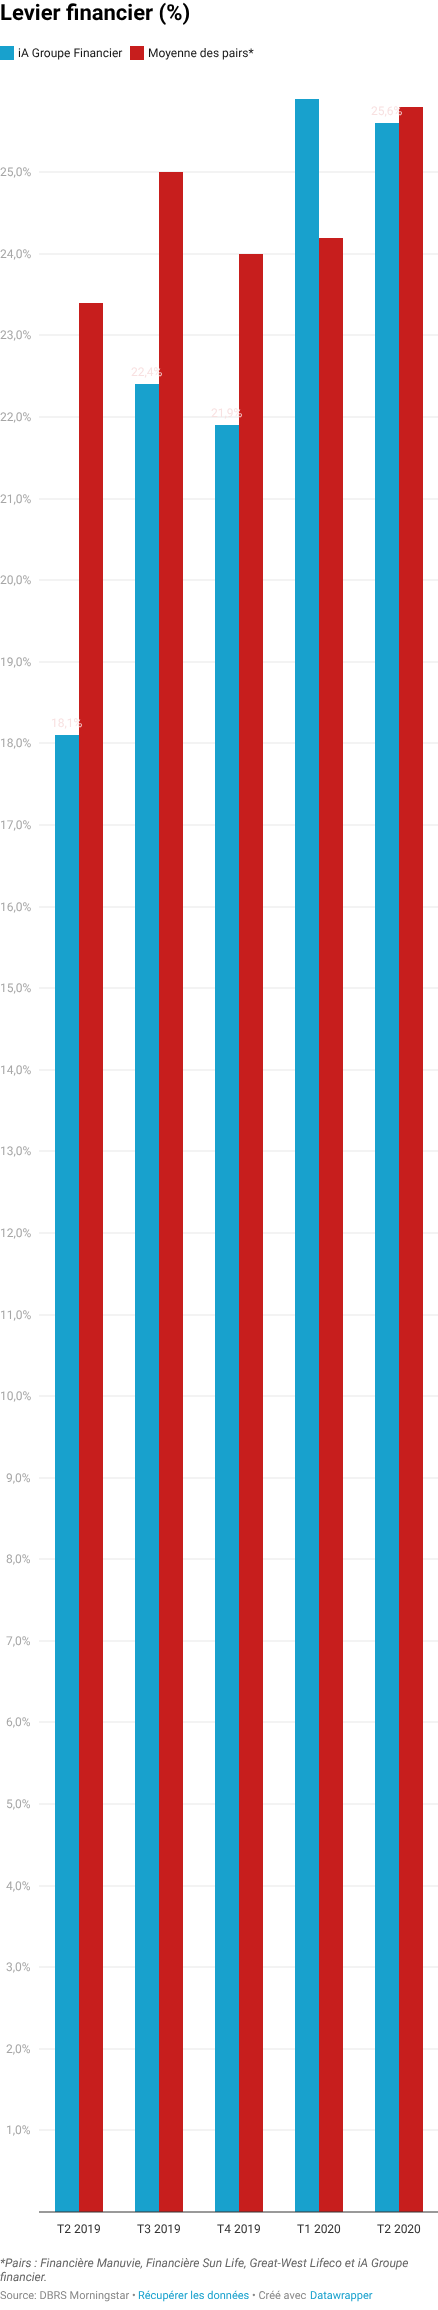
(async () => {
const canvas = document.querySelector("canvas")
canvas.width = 438
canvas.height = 2310
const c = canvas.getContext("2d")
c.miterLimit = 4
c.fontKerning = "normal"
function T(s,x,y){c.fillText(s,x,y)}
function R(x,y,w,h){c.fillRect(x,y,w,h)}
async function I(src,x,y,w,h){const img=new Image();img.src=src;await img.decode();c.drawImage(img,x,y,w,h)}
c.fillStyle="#fff"
R(0,0,438,2310)
c.font="bold 22px Roboto"
c.fillStyle="#000"
T("Levier financier (%)",0,20)
c.fillStyle="#18a1cd"
R(0,46,14,14)
c.font="12px Roboto"
c.fillStyle="#181818"
T("iA Groupe Financier",18,57)
c.fillStyle="#c71e1d"
R(130,46,14,14)
c.fillStyle="#181818"
T("Moyenne des pairs*",148,57)
await I("1.png",39,99,399,2114)
c.fillStyle="#f8e1e1"
T("25,6%",371,115)
c.fillStyle="#a6a6a6"
T("25,0%",0,176)
T("24,0%",0,258)
T("23,0%",0,339)
c.fillStyle="#f8e1e1"
T("22,4%",131,376)
c.fillStyle="#a6a6a6"
T("22,0%",0,421)
c.fillStyle="#f8e1e1"
T("21,9%",211,417)
c.fillStyle="#a6a6a6"
T("21,0%",0,503)
T("20,0%",0,584)
T("19,0%",0,666)
c.fillStyle="#f8e1e1"
T("18,1%",51,727)
c.fillStyle="#a6a6a6"
T("18,0%",0,747)
T("17,0%",0,829)
T("16,0%",0,911)
T("15,0%",0,992)
T("14,0%",0,1074)
T("13,0%",0,1155)
T("12,0%",0,1237)
T("11,0%",0,1319)
T("10,0%",0,1400)
T("9,0%",6,1482)
T("8,0%",6,1563)
T("7,0%",6,1645)
T("6,0%",6,1726)
T("5,0%",6,1808)
T("4,0%",6,1890)
T("3,0%",6,1971)
T("2,0%",6,2053)
T("1,0%",6,2134)
c.fillStyle="#333"
T("T2 2019",57,2233)
T("T3 2019",137,2233)
T("T4 2019",217,2233)
T("T1 2020",297,2233)
T("T2 2020",377,2233)
c.font="italic 12px Roboto"
c.fillStyle="#656565"
T("*Pairs : Financière Manuvie, Financière Sun Life, Great-West Lifeco et iA Groupe",0,2267)
T("financier.",0,2281)
c.font="11px Roboto"
c.fillStyle="#888"
T("Source: DBRS Morningstar •",0,2299)
c.fillStyle="#18a1cd"
T("Récupérer les données",138,2299)
c.fillStyle="#888"
T("• Créé avec",252,2299)
c.fillStyle="#18a1cd"
T("Datawrapper",310,2299)
})()
